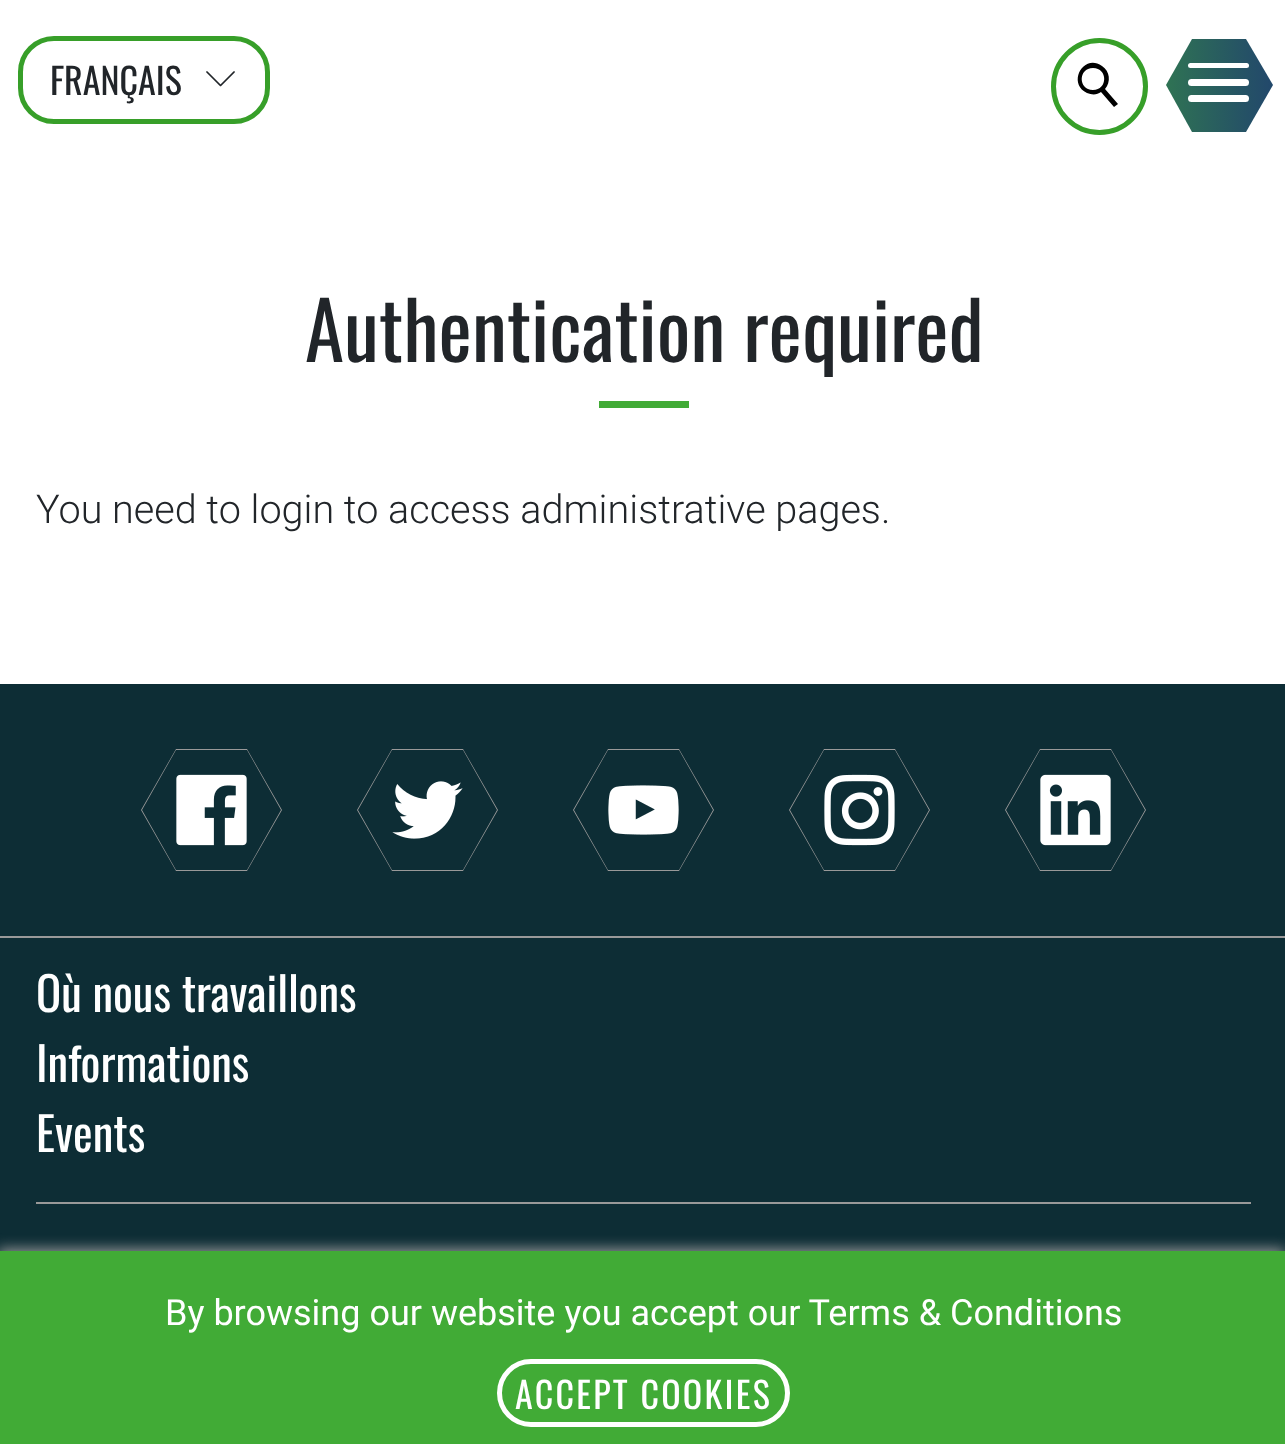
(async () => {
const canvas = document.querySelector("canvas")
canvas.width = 1285
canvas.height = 1444
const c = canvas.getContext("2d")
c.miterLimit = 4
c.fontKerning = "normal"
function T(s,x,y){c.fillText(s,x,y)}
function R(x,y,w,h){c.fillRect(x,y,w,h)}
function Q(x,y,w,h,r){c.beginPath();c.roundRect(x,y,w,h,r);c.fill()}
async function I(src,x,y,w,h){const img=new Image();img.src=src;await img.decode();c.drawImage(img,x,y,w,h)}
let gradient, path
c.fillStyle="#fff"
R(0,0,1285,1444)
c.beginPath()
c.roundRect(20.5,38.5,247,83,33.5)
c.strokeStyle="#379f29"
c.lineWidth=5
c.stroke()
c.font="36px Oswald"
c.fillStyle="#212529"
T("FRANÇAIS",50,95)
await I("1.png",206,71,29,16)
c.beginPath()
c.arc(1099.5,86.5,46,0,7)
c.stroke()
c.fillStyle="#000"
path = new Path2D("M1105 89l13 15l-4 3l-13-15c-4 3-9 3-14 1c-20-9-4-40 15-27c8 5 9 16 3 23zm-12 1c15 0 15-22 0-22c-15 0-15 22 0 22z")
c.fill(path)
gradient = c.createLinearGradient(1035,85,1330,85)
gradient.addColorStop(0,"#3faa35")
gradient.addColorStop(.1,"#3b9d3c")
gradient.addColorStop(.72,"#255166")
gradient.addColorStop(1,"#1c3377")
c.fillStyle = gradient
path = new Path2D("M1192 132h54l27-47l-27-46h-54l-26 46z")
c.fill(path)
c.fillStyle="#fff"
Q(1188,63,61,5,2.5)
Q(1188,79,61,7,3.5)
Q(1188,95,61,7,3.5)
c.font="79.25px Oswald"
c.fillStyle="#212529"
T("Authentication required",305,362)
c.fillStyle="#41ab36"
R(599,401,90,7)
c.font="300 39.6px Roboto"
c.fillStyle="#212529"
T("You need to login to access administrative pages.",36,523)
c.fillStyle="#0d2d35"
R(0,684,1285,567)
c.fillStyle="#999"
R(0,936,1285,2)
path = new Path2D("M247 871h-71l-35-61l35-61h71l35 61zm-71-1h71l34-60l-34-60h-71l-34 60z")
c.fill(path)
path = new Path2D("M463 871h-71l-35-61l35-61h71l35 61zm-71-1h71l34-60l-34-60h-71l-34 60z")
c.fill(path)
path = new Path2D("M679 871h-71l-35-61l35-61h71l35 61zm-71-1h71l34-60l-34-60h-71l-34 60z")
c.fill(path)
path = new Path2D("M895 871h-71l-35-61l35-61h71l35 61zm-71-1h71l34-60l-34-60h-71l-34 60z")
c.fill(path)
path = new Path2D("M1111 871h-71l-35-61l35-61h71l35 61zm-71-1h71l34-60l-34-60h-71l-34 60z")
c.fill(path)
await I("2.png",176,774,71,72)
await I("3.png",392,781,71,58)
await I("4.png",608,785,71,50)
await I("5.png",824,774,71,72)
await I("6.png",1040,774,71,72)
c.font="46.75px Oswald"
c.fillStyle="#fff"
T("Où nous travaillons",36,1012)
T("Informations",36,1082)
T("Events",36,1152)
c.fillStyle="#999"
R(36,1202,1215,2)
c.filter="blur(7px)"
c.beginPath()
c.rect(-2,1249,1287,193)
c.fill()
c.filter="none"
c.fillStyle="#41ab36"
R(0,1251,1285,193)
c.font="36px Roboto"
c.fillStyle="#fff"
T("By browsing our website you accept our Terms & Conditions",165,1325)
c.beginPath()
c.roundRect(499.5,1361.5,288,63,31.5)
c.strokeStyle="#fff"
c.stroke()
c.letterSpacing="2.25px"
c.font="36px Oswald"
T("ACCEPT COOKIES",515,1409)
})()
